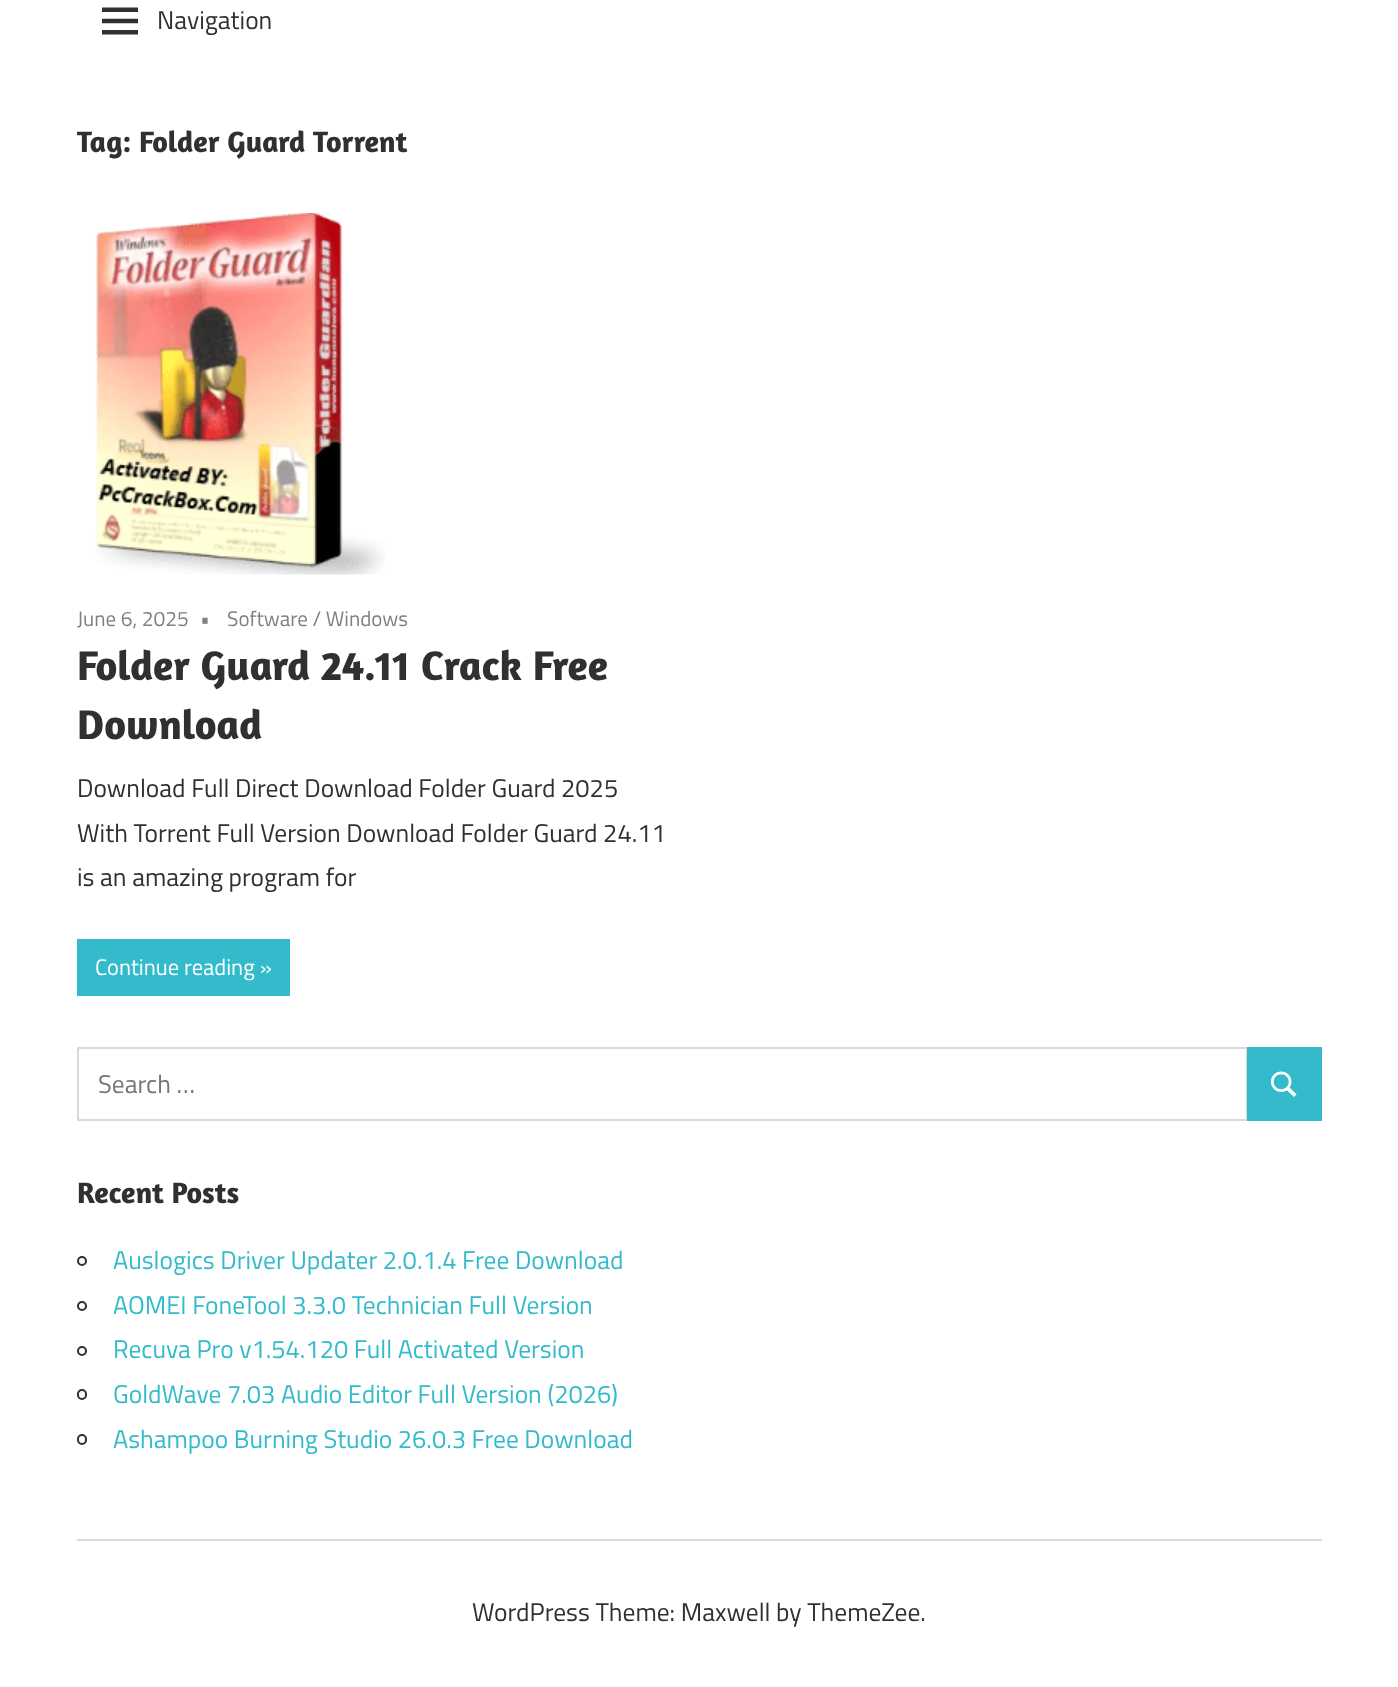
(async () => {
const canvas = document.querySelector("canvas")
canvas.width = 1398
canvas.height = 1687
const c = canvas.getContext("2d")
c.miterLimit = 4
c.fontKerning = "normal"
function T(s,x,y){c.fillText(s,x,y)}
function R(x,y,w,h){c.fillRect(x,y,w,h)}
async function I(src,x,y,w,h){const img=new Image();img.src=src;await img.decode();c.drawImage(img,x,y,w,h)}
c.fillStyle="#fff"
R(0,0,1398,1687)
await I("1.png",102,7,36,28)
c.font="25.5px Titillium Web"
c.fillStyle="#303030"
T("Navigation",157,29)
c.font="bold 30px Amaranth"
T("Tag: Folder Guard Torrent",77,152)
await I("2.png",95,213,290,362)
c.font="21px Titillium Web"
c.fillStyle="#808080"
T("June 6, 2025",77,626)
T("•",200,626)
T("Software / Windows",227,626)
c.font="bold 42px Amaranth"
c.fillStyle="#303030"
T("Folder Guard 24.11 Crack Free",77,680)
T("Download",77,739)
c.font="25.5px Titillium Web"
T("Download Full Direct Download Folder Guard 2025",77,797)
T("With Torrent Full Version Download Folder Guard 24.11",77,842)
T("is an amazing program for",77,886)
c.fillStyle="#3bc"
R(77,939,213,57)
c.font="22.5px Titillium Web"
c.fillStyle="#fff"
T("Continue reading »",95,975)
c.strokeStyle="#d9d9d9"
c.lineWidth=2
c.strokeRect(78,1048,1169,72)
c.font="25.5px Titillium Web"
c.fillStyle="#757575"
T("Search …",98,1093)
c.fillStyle="#3bc"
R(1247,1047,75,74)
await I("3.png",1270,1071,27,26)
c.font="bold 30px Amaranth"
c.fillStyle="#303030"
T("Recent Posts",77,1203)
c.beginPath()
c.arc(82,1261,4,0,7)
c.strokeStyle="#303030"
c.stroke()
c.font="25.5px Titillium Web"
c.fillStyle="#3bc"
T("Auslogics Driver Updater 2.0.1.4 Free Download",113,1269)
c.beginPath()
c.arc(82,1306,4,0,7)
c.stroke()
T("AOMEI FoneTool 3.3.0 Technician Full Version",113,1314)
c.beginPath()
c.arc(82,1351,4,0,7)
c.stroke()
T("Recuva Pro v1.54.120 Full Activated Version",113,1358)
c.beginPath()
c.roundRect(78,1390,8,9,4)
c.stroke()
T("GoldWave 7.03 Audio Editor Full Version (2026)",113,1403)
c.beginPath()
c.roundRect(78,1435,8,9,4)
c.stroke()
T("Ashampoo Burning Studio 26.0.3 Free Download",113,1448)
c.fillStyle="#d9d9d9"
R(77,1539,1245,2)
c.fillStyle="#303030"
T("WordPress Theme: Maxwell by ThemeZee.",472,1621)
})()
